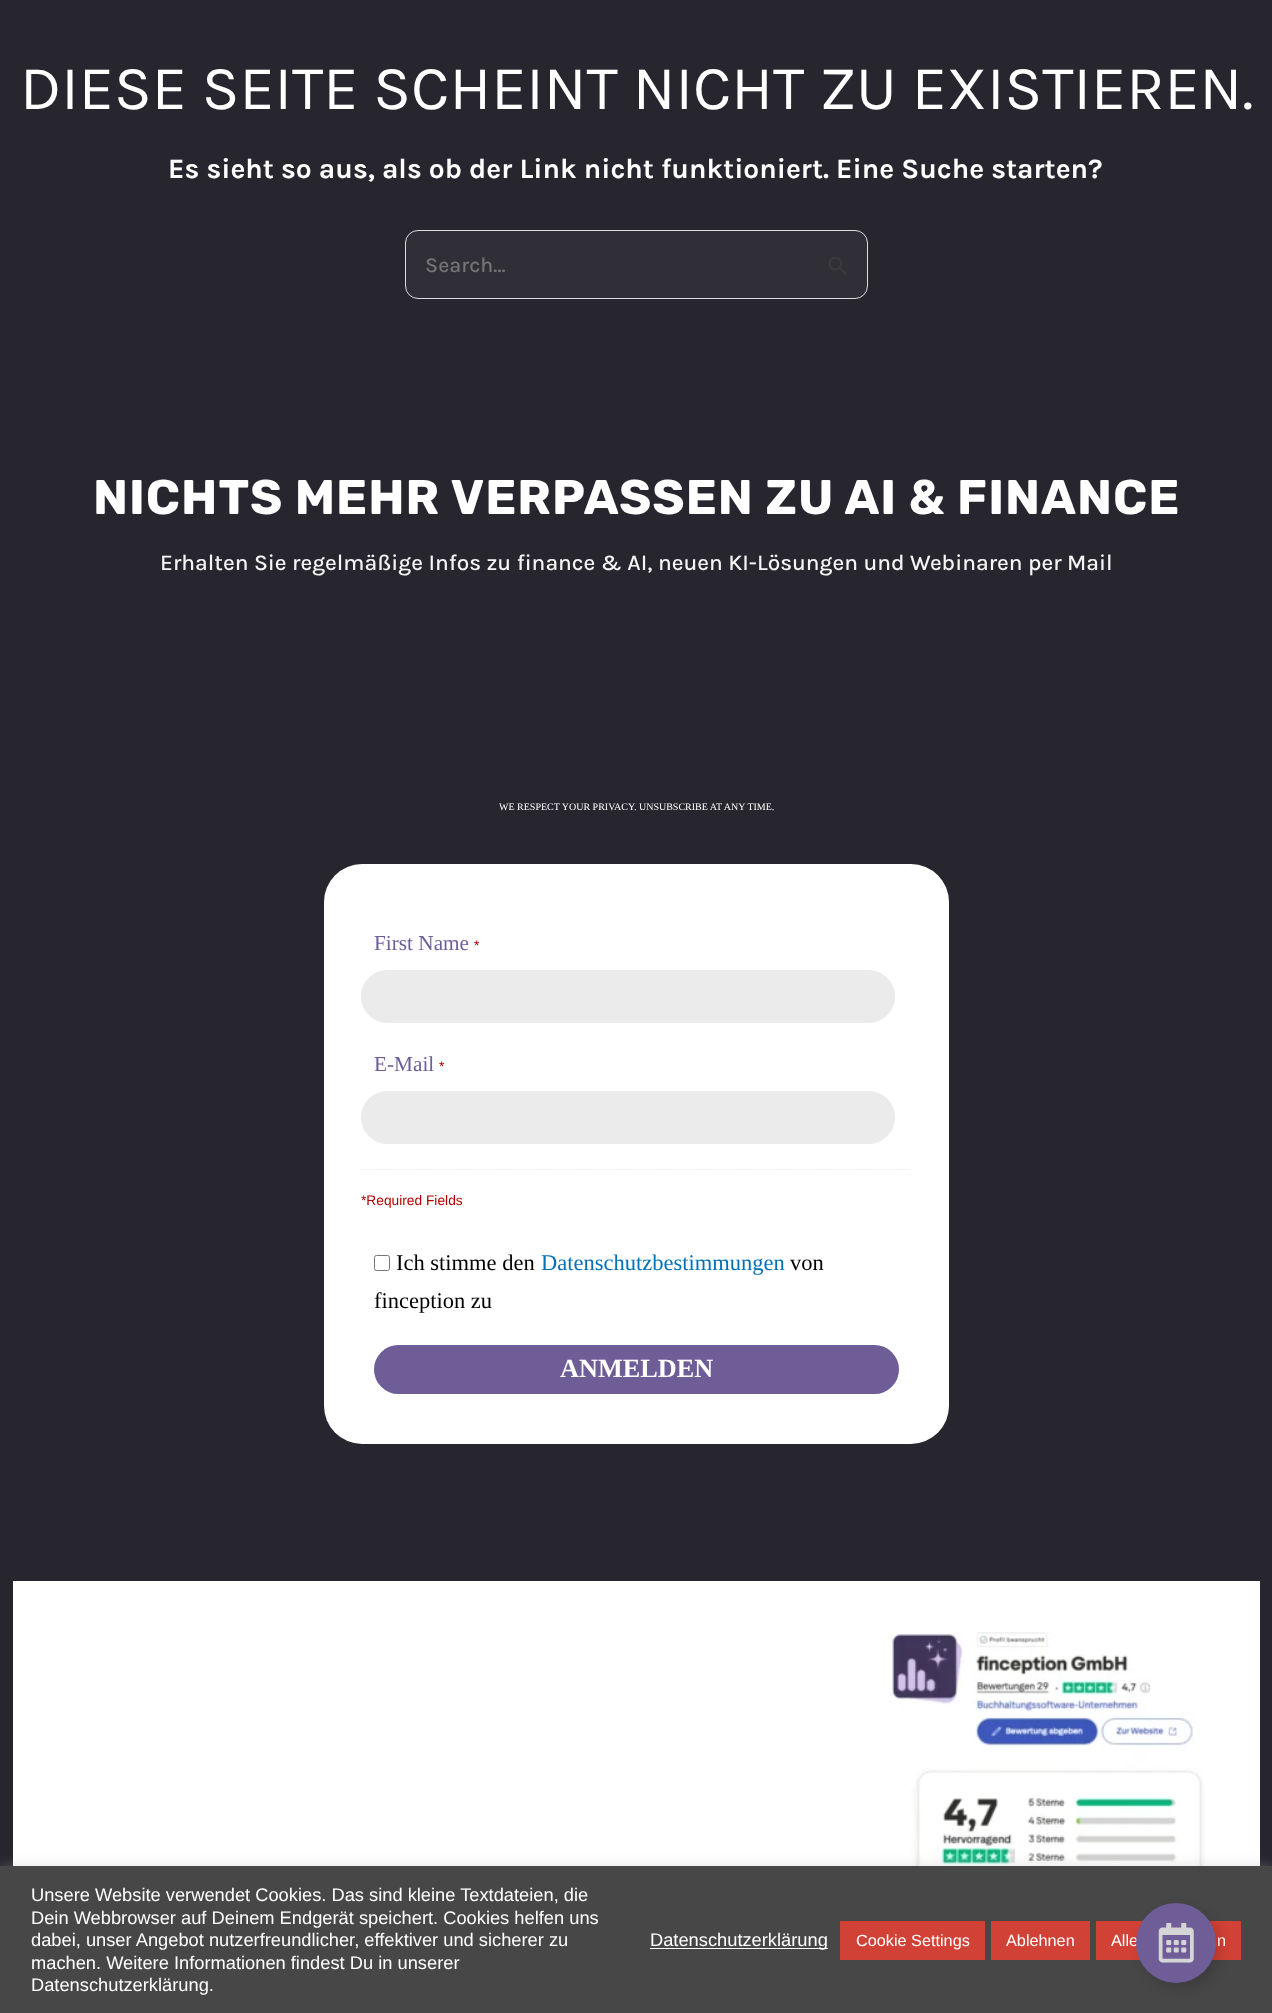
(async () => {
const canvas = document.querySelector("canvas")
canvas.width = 1272
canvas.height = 2013
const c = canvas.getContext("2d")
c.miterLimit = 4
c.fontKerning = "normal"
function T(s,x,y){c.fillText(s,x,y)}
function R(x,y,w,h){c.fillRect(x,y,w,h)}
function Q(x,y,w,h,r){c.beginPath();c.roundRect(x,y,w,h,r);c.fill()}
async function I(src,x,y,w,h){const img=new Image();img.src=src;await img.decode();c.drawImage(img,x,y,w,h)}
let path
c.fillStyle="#27262e"
R(0,0,1272,2013)
c.font="62.5px Karla"
c.fillStyle="#fff"
T("DIESE SEITE SCHEINT NICHT ZU EXISTIEREN.",20,109)
c.font="bold 28.1px Karla"
T("Es sieht so aus, als ob der Link nicht funktioniert. Eine Suche starten?",168,178)
c.fillStyle="#302f37"
c.beginPath()
c.roundRect(405.5,230.5,462,68,12.5)
c.fill()
c.strokeStyle="#ddd"
c.stroke()
c.font="500 21.25px Karla"
c.fillStyle="#757575"
T("Search...",425,272)
await I("1.png",828,257,18,18)
c.letterSpacing="1px"
c.font="bold 48.75px Rubik"
c.fillStyle="#fff"
T("NICHTS MEHR VERPASSEN ZU AI & FINANCE",93,514)
c.letterSpacing="0px"
c.font="500 22.5px Karla"
c.fillStyle="#f5f5f5"
T("Erhalten Sie regelmäßige Infos zu finance & AI, neuen KI-Lösungen und Webinaren per Mail",160,570)
c.font="10px Liberation Serif"
c.fillStyle="#fff"
T("WE RESPECT YOUR PRIVACY. UNSUBSCRIBE AT ANY TIME.",499,810)
Q(324,864,625,580,38)
c.font="21.25px Liberation Serif"
c.fillStyle="#6f5d98"
T("First Name",374,950)
c.font="13.75px Liberation Sans"
c.fillStyle="#b40000"
T("*",474,950)
c.fillStyle="#ebebeb"
c.beginPath()
c.roundRect(362.5,971.5,531,50,25)
c.fill()
c.strokeStyle="#ebebeb"
c.lineWidth=3
c.stroke()
c.font="21.25px Liberation Serif"
c.fillStyle="#6f5d98"
T("E-Mail",374,1071)
c.font="13.75px Liberation Sans"
c.fillStyle="#b40000"
T("*",439,1071)
c.fillStyle="#ebebeb"
c.beginPath()
c.roundRect(362.5,1092.5,531,50,25)
c.fill()
c.stroke()
path = new Path2D("M361 1169.5h550")
c.lineWidth=1.2
c.setLineDash([1.25,1.25])
c.stroke(path)
c.fillStyle="#b40000"
T("*Required Fields",361,1205)
c.beginPath()
c.roundRect(374.5,1255.5,15,15,2)
c.strokeStyle="#767676"
c.lineWidth=1
c.setLineDash([])
c.stroke()
c.font="22.5px Liberation Serif"
c.fillStyle="#000"
T("Ich stimme den",396,1270)
c.fillStyle="#0170b9"
T("Datenschutzbestimmungen",541,1270)
c.fillStyle="#000"
T("von",790,1270)
T("finception zu",374,1308)
c.fillStyle="#6f5d98"
Q(374,1345,525,49,24.5)
c.font="bold 26.25px Liberation Serif"
c.fillStyle="#fff"
T("ANMELDEN",560,1377)
R(13,1581,1247,285)
await I("2.png",885,1631,320,235)
c.fillStyle="#acabab4d"
c.filter="blur(6px)"
c.beginPath()
c.rect(0,1865,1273,148)
c.fill()
c.filter="none"
c.fillStyle="#474747"
R(0,1866,1272,147)
c.font="18.3px Liberation Sans"
c.fillStyle="#fff"
T("Unsere Website verwendet Cookies. Das sind kleine Textdateien, die",31,1901)
T("Dein Webbrowser auf Deinem Endgerät speichert. Cookies helfen uns",31,1924)
T("dabei, unser Angebot nutzerfreundlicher, effektiver und sicherer zu",31,1946)
T("machen. Weitere Informationen findest Du in unserer",31,1969)
T("Datenschutzerklärung.",31,1991)
R(650,1948,178,1)
T("Datenschutzerklärung",650,1946)
c.fillStyle="#d24135"
R(840,1921,145,39)
c.font="16.25px Liberation Sans"
c.fillStyle="#fff"
T("Cookie Settings",856,1946)
c.fillStyle="#d24135"
R(991,1921,99,39)
c.fillStyle="#fff"
T("Ablehnen",1006,1946)
c.fillStyle="#d24135"
R(1096,1921,145,39)
c.fillStyle="#fff"
T("Alle",1111,1946)
T("n",1217,1946)
c.fillStyle="#00000026"
c.filter="blur(6px)"
c.beginPath()
c.roundRect(1141,1908,80,80,40)
c.fill()
c.filter="none"
c.fillStyle="#6f5d98"
c.beginPath()
c.arc(1176,1943,40,0,7)
c.fill()
await I("3.png",1158,1923,36,40)
})()
